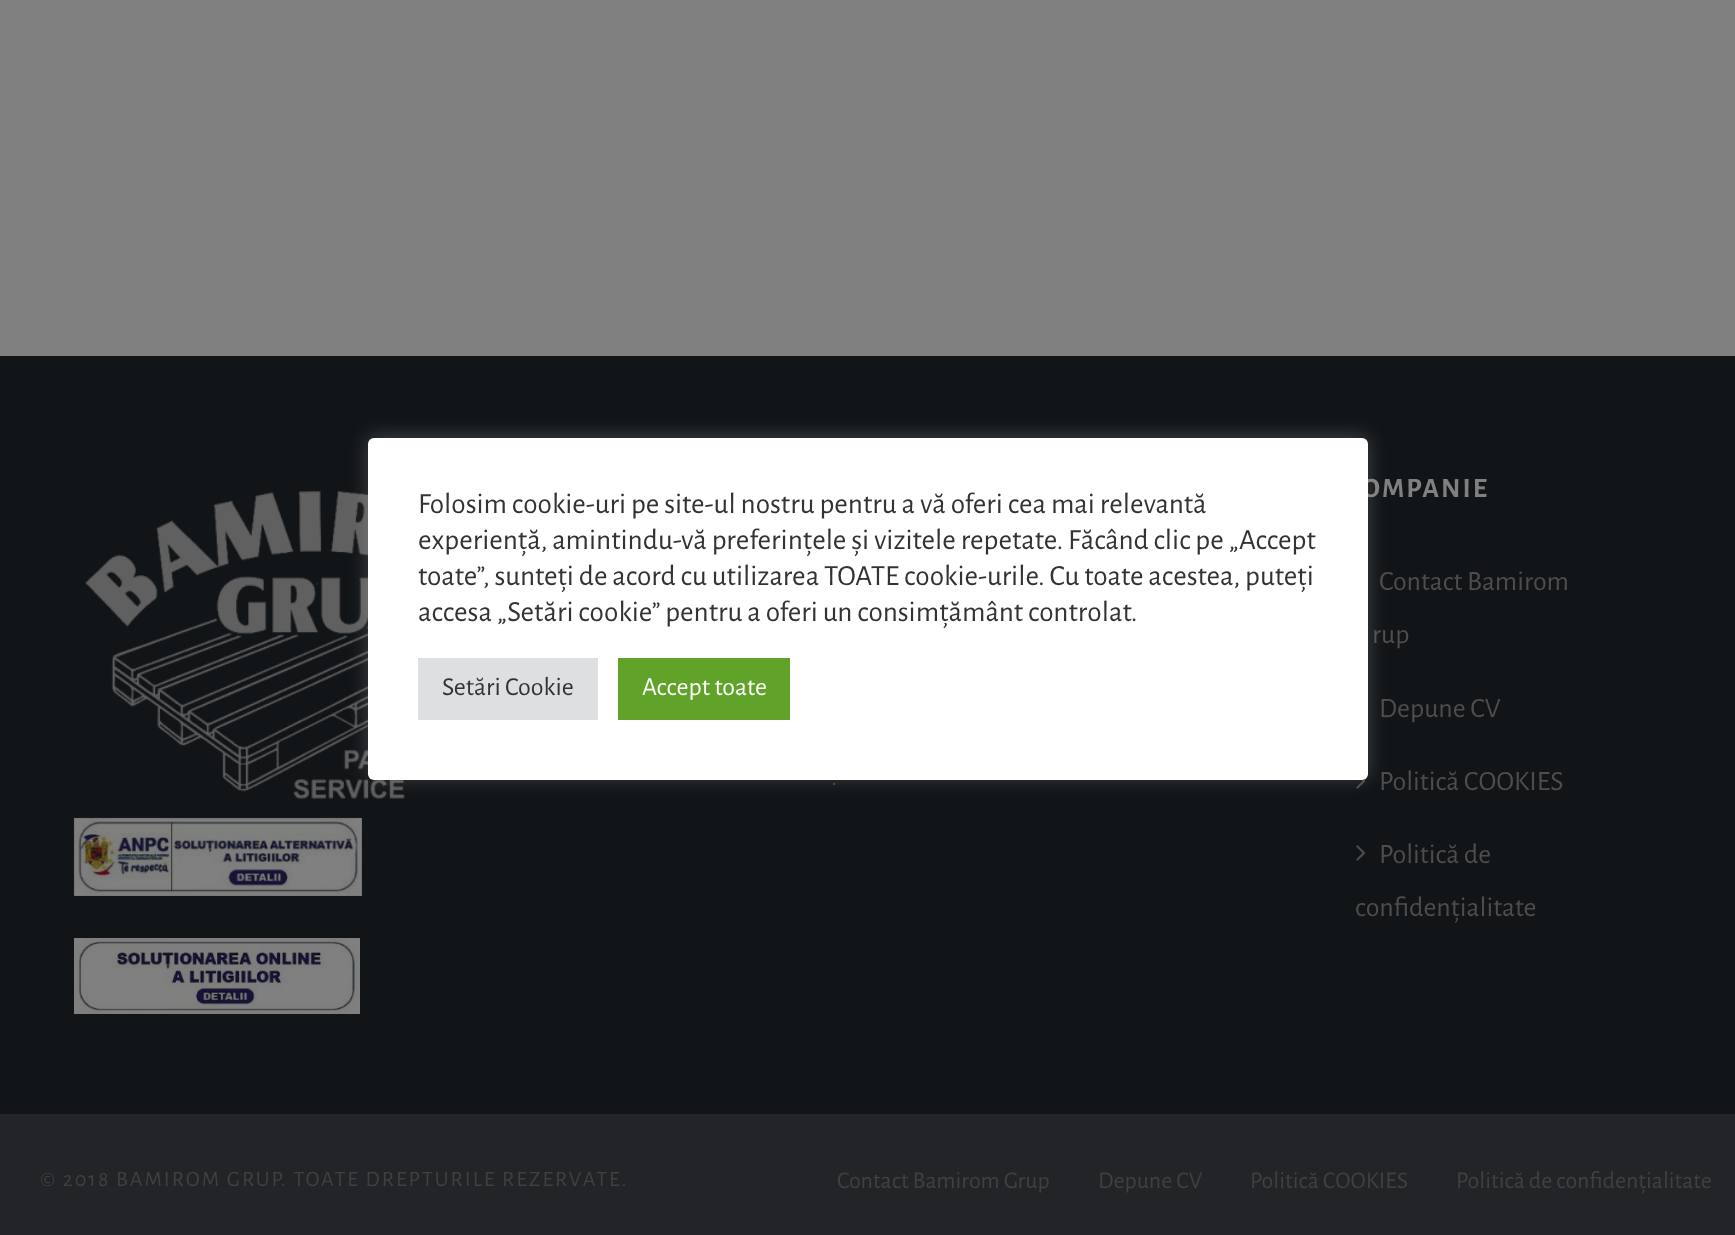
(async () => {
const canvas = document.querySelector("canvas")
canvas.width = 1735
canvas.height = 1235
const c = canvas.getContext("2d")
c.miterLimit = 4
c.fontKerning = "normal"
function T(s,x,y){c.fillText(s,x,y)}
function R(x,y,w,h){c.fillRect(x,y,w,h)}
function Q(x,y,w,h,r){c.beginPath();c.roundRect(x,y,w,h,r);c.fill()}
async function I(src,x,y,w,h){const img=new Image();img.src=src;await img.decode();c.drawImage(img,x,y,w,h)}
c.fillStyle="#808080"
R(0,0,1735,1235)
c.fillStyle="#121518"
R(0,356,1735,758)
await I("1.png",85,491,320,308)
await I("2.png",73,817,289,79)
await I("3.png",74,938,286,76)
c.font="28px Alegreya Sans"
c.fillStyle="#404040"
T(".",831,785)
c.letterSpacing="2px"
c.font="bold 28px Alegreya Sans"
c.fillStyle="#808080"
T("OMPANIE",1362,497)
c.letterSpacing="0px"
c.font="28px Alegreya Sans"
c.fillStyle="#4d4d4d"
T("Contact Bamirom",1379,590)
T("rup",1372,643)
T("Depune CV",1379,717)
await I("4.png",1356,779,10,10)
T("Politică COOKIES",1379,790)
await I("5.png",1356,845,10,16)
T("Politică de",1379,863)
T("confidențialitate",1355,916)
c.fillStyle="#222427"
R(0,1114,1735,121)
c.letterSpacing="2px"
c.font="22px Alegreya Sans"
c.fillStyle="#404040"
T("© 2018 BAMIROM GRUP. TOATE DREPTURILE REZERVATE.",40,1186)
c.letterSpacing="0px"
c.font="24px Alegreya Sans"
T("Contact Bamirom Grup",837,1188)
T("Depune CV",1098,1188)
T("Politică COOKIES",1250,1188)
T("Politică de confidențialitate",1456,1188)
c.fillStyle="#acabab4d"
c.filter="blur(10px)"
c.beginPath()
c.roundRect(368,436,1000,342,6)
c.fill()
c.filter="none"
c.fillStyle="#fff"
Q(368,438,1000,342,6)
c.font="29.3px Alegreya Sans"
c.fillStyle="#333"
T("Folosim cookie-uri pe site-ul nostru pentru a vă oferi cea mai relevantă",418,513)
T("experiență, amintindu-vă preferințele și vizitele repetate. Făcând clic pe „Accept",418,549)
T("toate”, sunteți de acord cu utilizarea TOATE cookie-urile. Cu toate acestea, puteți",418,585)
T("accesa „Setări cookie” pentru a oferi un consimțământ controlat.",418,621)
c.fillStyle="#dedfe0"
R(418,658,180,62)
c.font="26px Alegreya Sans"
c.fillStyle="#333"
T("Setări Cookie",442,695)
c.fillStyle="#61a229"
R(618,658,172,62)
c.fillStyle="#fff"
T("Accept toate",642,695)
})()
